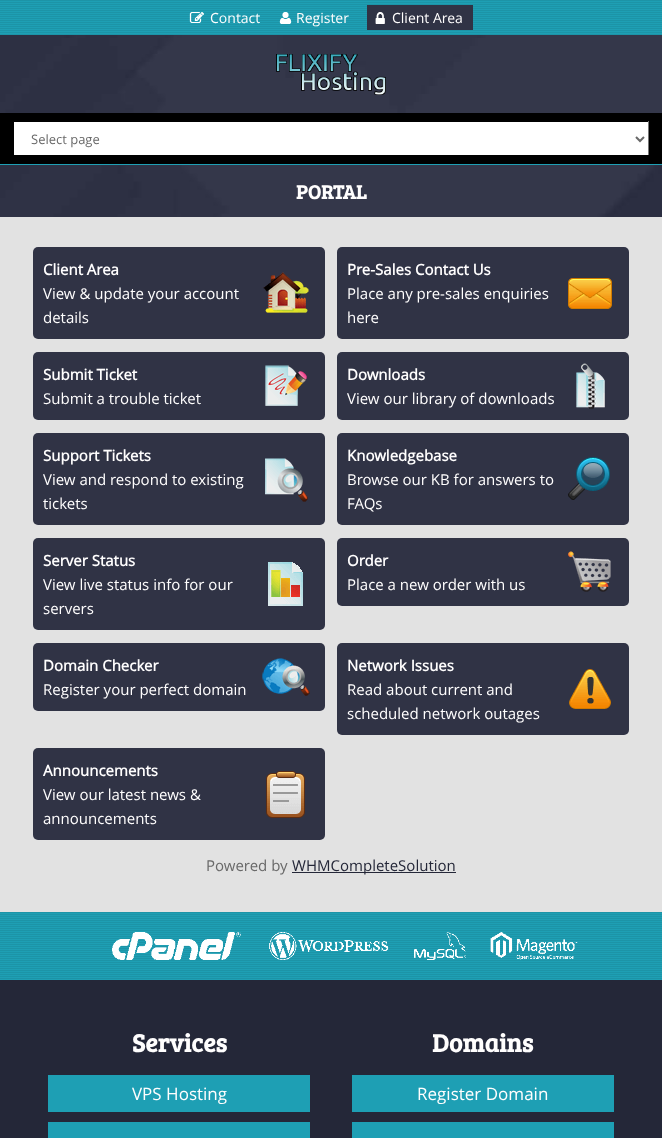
(async () => {
const canvas = document.querySelector("canvas")
canvas.width = 662
canvas.height = 1138
const c = canvas.getContext("2d")
c.miterLimit = 4
c.fontKerning = "normal"
function T(s,x,y){c.fillText(s,x,y)}
function R(x,y,w,h){c.fillRect(x,y,w,h)}
function Q(x,y,w,h,r){c.beginPath();c.roundRect(x,y,w,h,r);c.fill()}
async function I(src,x,y,w,h){const img=new Image();img.src=src;await img.decode();c.drawImage(img,x,y,w,h)}
let path
c.fillStyle="#e2e2e2"
R(0,0,662,1138)
await I("1.png",0,35,662,182)
await I("2.png",0,0,662,35)
await I("3.png",189,12,15,11)
c.font="14px Open Sans"
c.fillStyle="#fffefe"
T("Contact",210,23)
await I("4.png",279,12,13,12)
T("Register",296,23)
c.fillStyle="#303345"
R(367,5,106,25)
await I("5.png",375,12,10,12)
c.fillStyle="#fffefe"
T("Client Area",392,23)
c.fillStyle="#1e9fb4"
R(0,164,662,1)
await I("6.png",276,54,110,41)
c.fillStyle="#000"
R(0,113,662,51)
c.fillStyle="#fff"
R(14,122,634,33)
c.fillStyle="#767676"
R(648,121,1,35)
c.fillStyle="#000"
R(648,155,1,1)
path = new Path2D("M636 137l4 4l4-4")
c.strokeStyle="#696969"
c.lineWidth=2
c.stroke(path)
c.font="13px Open Sans"
c.fillStyle="#696969"
T("Select page",31,144)
c.font="bold 20px Bree Serif"
c.fillStyle="#fffefe"
T("PORTAL",296,199)
c.fillStyle="#303345"
Q(33,247,292,92,5)
await I("7.png",263,272,46,41)
c.font="bold 15px Open Sans"
c.fillStyle="#fffefe"
T("Client Area",43,275)
c.font="15px Open Sans"
T("View & update your account",43,299)
T("details",43,323)
c.fillStyle="#303345"
Q(337,247,292,92,5)
await I("8.png",568,278,44,31)
c.font="bold 15px Open Sans"
c.fillStyle="#fffefe"
T("Pre-Sales Contact Us",347,275)
c.font="15px Open Sans"
T("Place any pre-sales enquiries",347,299)
T("here",347,323)
c.fillStyle="#303345"
Q(33,352,292,68,5)
await I("9.png",265,365,42,41)
c.font="bold 15px Open Sans"
c.fillStyle="#fffefe"
T("Submit Ticket",43,380)
c.font="15px Open Sans"
T("Submit a trouble ticket",43,404)
c.fillStyle="#303345"
Q(337,352,292,68,5)
await I("10.png",576,363,29,46)
c.font="bold 15px Open Sans"
c.fillStyle="#fffefe"
T("Downloads",347,380)
c.font="15px Open Sans"
T("View our library of downloads",347,404)
c.fillStyle="#303345"
Q(33,433,292,92,5)
await I("11.png",265,458,43,44)
c.font="bold 15px Open Sans"
c.fillStyle="#fffefe"
T("Support Tickets",43,461)
c.font="15px Open Sans"
T("View and respond to existing",43,485)
T("tickets",43,509)
c.fillStyle="#303345"
Q(337,433,292,92,5)
await I("12.png",568,457,42,43)
c.font="bold 15px Open Sans"
c.fillStyle="#fffefe"
T("Knowledgebase",347,461)
c.font="15px Open Sans"
T("Browse our KB for answers to",347,485)
T("FAQs",347,509)
c.fillStyle="#303345"
Q(33,538,292,92,5)
await I("13.png",268,562,35,44)
c.font="bold 15px Open Sans"
c.fillStyle="#fffefe"
T("Server Status",43,566)
c.font="15px Open Sans"
T("View live status info for our",43,590)
T("servers",43,614)
c.fillStyle="#303345"
Q(337,538,292,68,5)
await I("14.png",568,551,43,41)
c.font="bold 15px Open Sans"
c.fillStyle="#fffefe"
T("Order",347,566)
c.font="15px Open Sans"
T("Place a new order with us",347,590)
c.fillStyle="#303345"
Q(33,643,292,68,5)
await I("15.png",262,658,48,38)
c.font="bold 15px Open Sans"
c.fillStyle="#fffefe"
T("Domain Checker",43,671)
c.font="15px Open Sans"
T("Register your perfect domain",43,695)
c.fillStyle="#303345"
Q(337,643,292,92,5)
await I("16.png",569,669,42,40)
c.font="bold 15px Open Sans"
c.fillStyle="#fffefe"
T("Network Issues",347,671)
c.font="15px Open Sans"
T("Read about current and",347,695)
T("scheduled network outages",347,719)
c.fillStyle="#303345"
Q(33,748,292,92,5)
await I("17.png",266,771,39,47)
c.font="bold 15px Open Sans"
c.fillStyle="#fffefe"
T("Announcements",43,776)
c.font="15px Open Sans"
T("View our latest news &",43,800)
T("announcements",43,824)
c.fillStyle="#696969"
T("Powered by",206,871)
c.fillStyle="#242738"
R(292,872,164,1)
T("WHMCompleteSolution",292,871)
c.fillStyle="#1e9fb4"
R(0,979,662,1)
await I("18.png",0,912,662,67)
await I("19.png",112,932,466,28)
c.fillStyle="#242738"
R(0,980,662,158)
c.font="bold 25.5px Bree Serif"
c.fillStyle="#fffefe"
T("Services",132,1052)
c.fillStyle="#1e9fb4"
R(48,1075,262,37)
c.font="17px Open Sans"
c.fillStyle="#fffefe"
T("VPS Hosting",132,1100)
c.fillStyle="#1e9fb4"
R(48,1122,262,16)
c.font="bold 25.5px Bree Serif"
c.fillStyle="#fffefe"
T("Domains",432,1052)
c.fillStyle="#1e9fb4"
R(352,1075,262,37)
c.font="17px Open Sans"
c.fillStyle="#fffefe"
T("Register Domain",417,1100)
c.fillStyle="#1e9fb4"
R(352,1122,262,16)
})()
